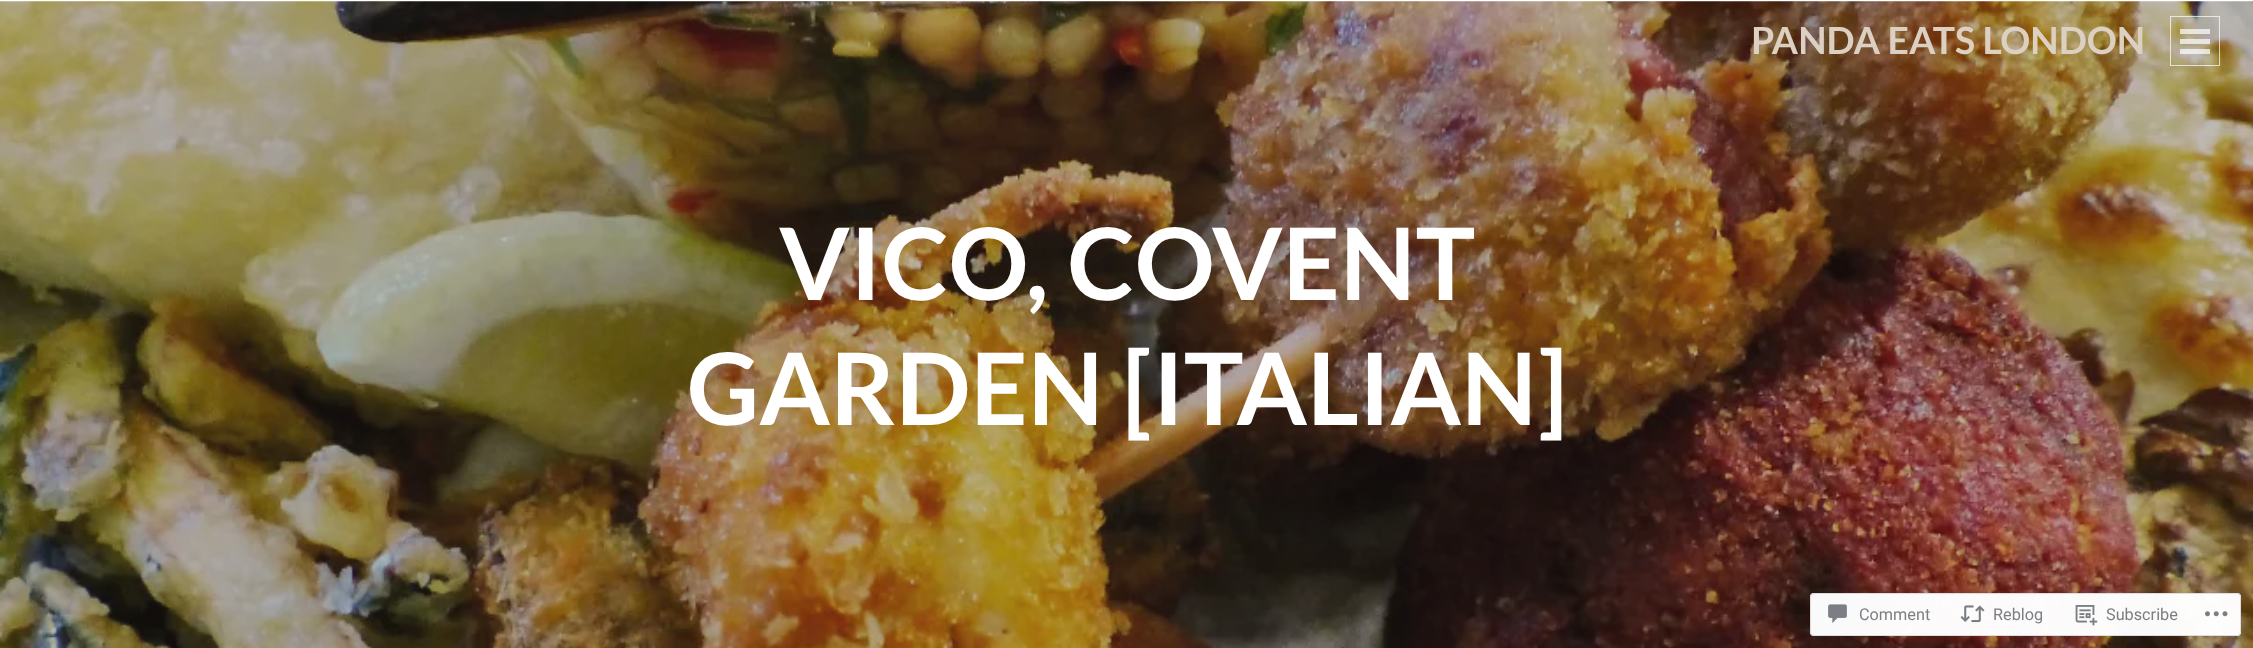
(async () => {
const canvas = document.querySelector("canvas")
canvas.width = 2253
canvas.height = 648
const c = canvas.getContext("2d")
c.miterLimit = 4
c.fontKerning = "normal"
function T(s,x,y){c.fillText(s,x,y)}
function R(x,y,w,h){c.fillRect(x,y,w,h)}
function Q(x,y,w,h,r){c.beginPath();c.roundRect(x,y,w,h,r);c.fill()}
async function I(src,x,y,w,h){const img=new Image();img.src=src;await img.decode();c.drawImage(img,x,y,w,h)}
c.fillStyle="#fff"
R(0,0,2253,648)
await I("1.png",0,1,2253,647)
c.font="bold 37.5px Lato"
c.fillStyle="#dbd0c2"
T("PANDA EATS LONDON",1751,54)
c.strokeStyle="#ffffffb3"
c.strokeRect(2170.5,16.5,49,49)
c.fillStyle="#ffffffb3"
R(2180,39,30,5)
R(2180,29,30,5)
R(2180,49,30,5)
c.font="bold 100px Lato"
c.fillStyle="#fff"
T("VICO, COVENT",779,300)
T("GARDEN [ITALIAN]",687,425)
c.fillStyle="#fffffffa"
Q(1810,593,431,43,4)
c.beginPath()
c.roundRect(1810.5,593.5,430,42,3.5)
c.strokeStyle="#dcdcdefa"
c.stroke()
await I("2.png",1828,604,19,19)
c.font="16.25px Roboto"
c.fillStyle="#7b7f84"
T("Comment",1859,620)
await I("3.png",1960,605,25,18)
T("Reblog",1993,620)
await I("4.png",2075,605,23,21)
T("Subscribe",2106,620)
await I("5.png",2205,611,23,6)
})()
